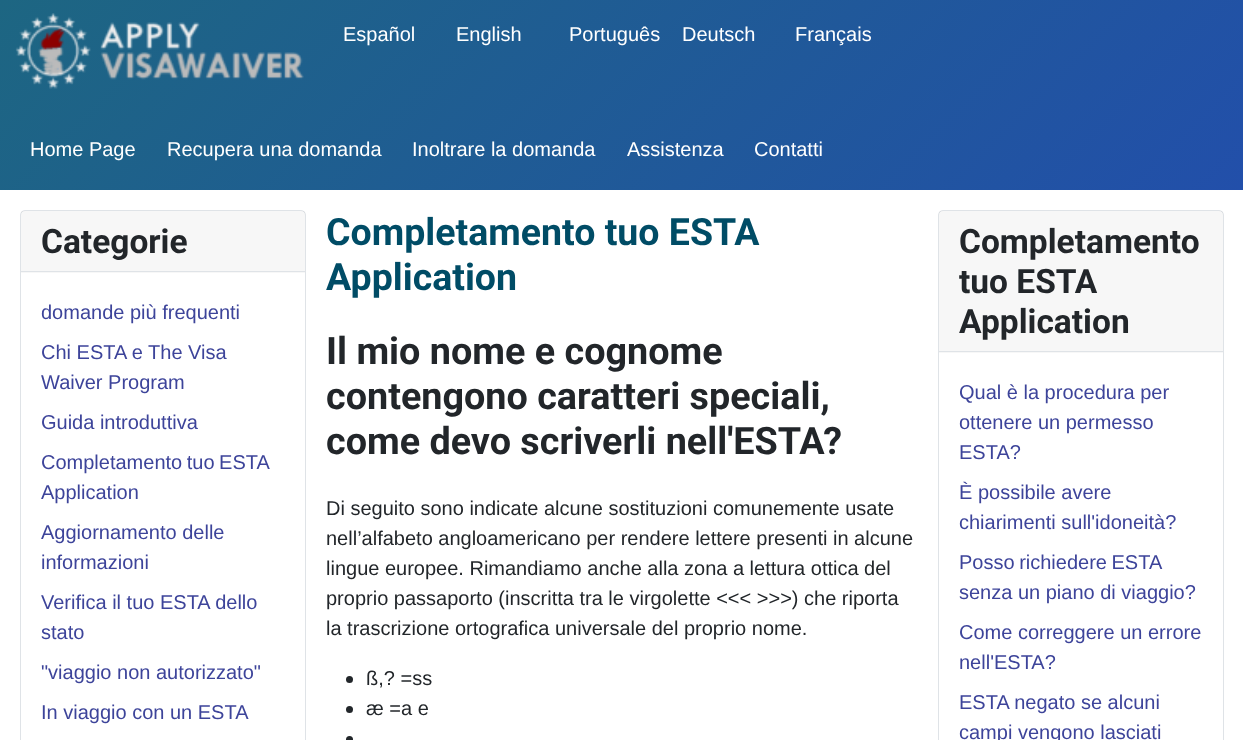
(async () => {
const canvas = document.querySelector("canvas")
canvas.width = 1243
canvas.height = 740
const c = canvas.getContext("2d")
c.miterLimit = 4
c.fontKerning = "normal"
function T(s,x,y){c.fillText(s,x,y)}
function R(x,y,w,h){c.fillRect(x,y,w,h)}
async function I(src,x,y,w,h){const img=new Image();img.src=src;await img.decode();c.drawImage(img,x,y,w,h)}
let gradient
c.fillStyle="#fff"
R(0,0,1243,740)
gradient = c.createLinearGradient(263,-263,980,453)
gradient.addColorStop(0,"#1d6682")
gradient.addColorStop(1,"#224faa")
c.fillStyle = gradient
R(0,0,1243,190)
await I("1.png",15,13,289,76)
c.font="20px Liberation Sans"
c.fillStyle="#fff"
T("Español",343,41)
T("English",456,41)
T("Português",569,41)
T("Deutsch",682,41)
T("Français",795,41)
T("Home Page",30,156)
T("Recupera una domanda",167,156)
T("Inoltrare la domanda",412,156)
T("Assistenza",627,156)
T("Contatti",754,156)
c.beginPath()
c.roundRect(20.5,210.5,285,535,4.5)
c.strokeStyle="#dfe3e7"
c.stroke()
c.fillStyle="#00000008"
R(21,211,284,62)
c.fillStyle="#dfe3e7"
R(21,271,284,1)
c.font="bold 33.5px Roboto"
c.fillStyle="#22262a"
T("Categorie",41,253)
c.font="20px Liberation Sans"
c.fillStyle="#3d449a"
T("domande più frequenti",41,319)
T("Chi ESTA e The Visa",41,359)
T("Waiver Program",41,389)
T("Guida introduttiva",41,429)
c.wordSpacing="-1px"
T("Completamento tuo ESTA",41,469)
c.wordSpacing="0px"
T("Application",41,499)
T("Aggiornamento delle",41,539)
T("informazioni",41,569)
T("Verifica il tuo ESTA dello",41,609)
T("stato",41,639)
T("\"viaggio non autorizzato\"",41,679)
T("In viaggio con un ESTA",41,719)
c.font="bold 37.5px Roboto"
c.fillStyle="#004c66"
T("Completamento tuo ESTA",326,245)
T("Application",326,290)
c.font="bold 37.75px Roboto"
c.fillStyle="#22262a"
T("Il mio nome e cognome",326,364)
T("contengono caratteri speciali,",326,409)
T("come devo scriverli nell'ESTA?",326,454)
c.font="20px Liberation Sans"
T("Di seguito sono indicate alcune sostituzioni comunemente usate",326,515)
T("nell’alfabeto angloamericano per rendere lettere presenti in alcune",326,545)
T("lingue europee. Rimandiamo anche alla zona a lettura ottica del",326,575)
T("proprio passaporto (inscritta tra le virgolette <<< >>>) che riporta",326,605)
T("la trascrizione ortografica universale del proprio nome.",326,635)
c.beginPath()
c.arc(349.5,679.5,3.5,0,7)
c.fill()
T("ß,? =ss",366,685)
c.beginPath()
c.arc(349.5,709.5,3.5,0,7)
c.fill()
T("æ =a e",366,715)
c.beginPath()
c.arc(349.5,739.5,3.5,0,7)
c.fill()
c.beginPath()
c.roundRect(938.5,210.5,285,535,4.5)
c.stroke()
c.fillStyle="#00000008"
R(939,211,284,142)
c.fillStyle="#dfe3e7"
R(939,351,284,1)
c.font="bold 33.5px Roboto"
c.fillStyle="#22262a"
T("Completamento",959,253)
T("tuo ESTA",959,293)
T("Application",959,333)
c.font="20px Liberation Sans"
c.fillStyle="#3d449a"
T("Qual è la procedura per",959,399)
T("ottenere un permesso",959,429)
T("ESTA?",959,459)
T("È possibile avere",959,499)
T("chiarimenti sull'idoneità?",959,529)
c.wordSpacing="-1px"
T("Posso richiedere ESTA",959,569)
c.wordSpacing="0px"
T("senza un piano di viaggio?",959,599)
T("Come correggere un errore",959,639)
T("nell'ESTA?",959,669)
T("ESTA negato se alcuni",959,709)
T("campi vengono lasciati",959,739)
})()
